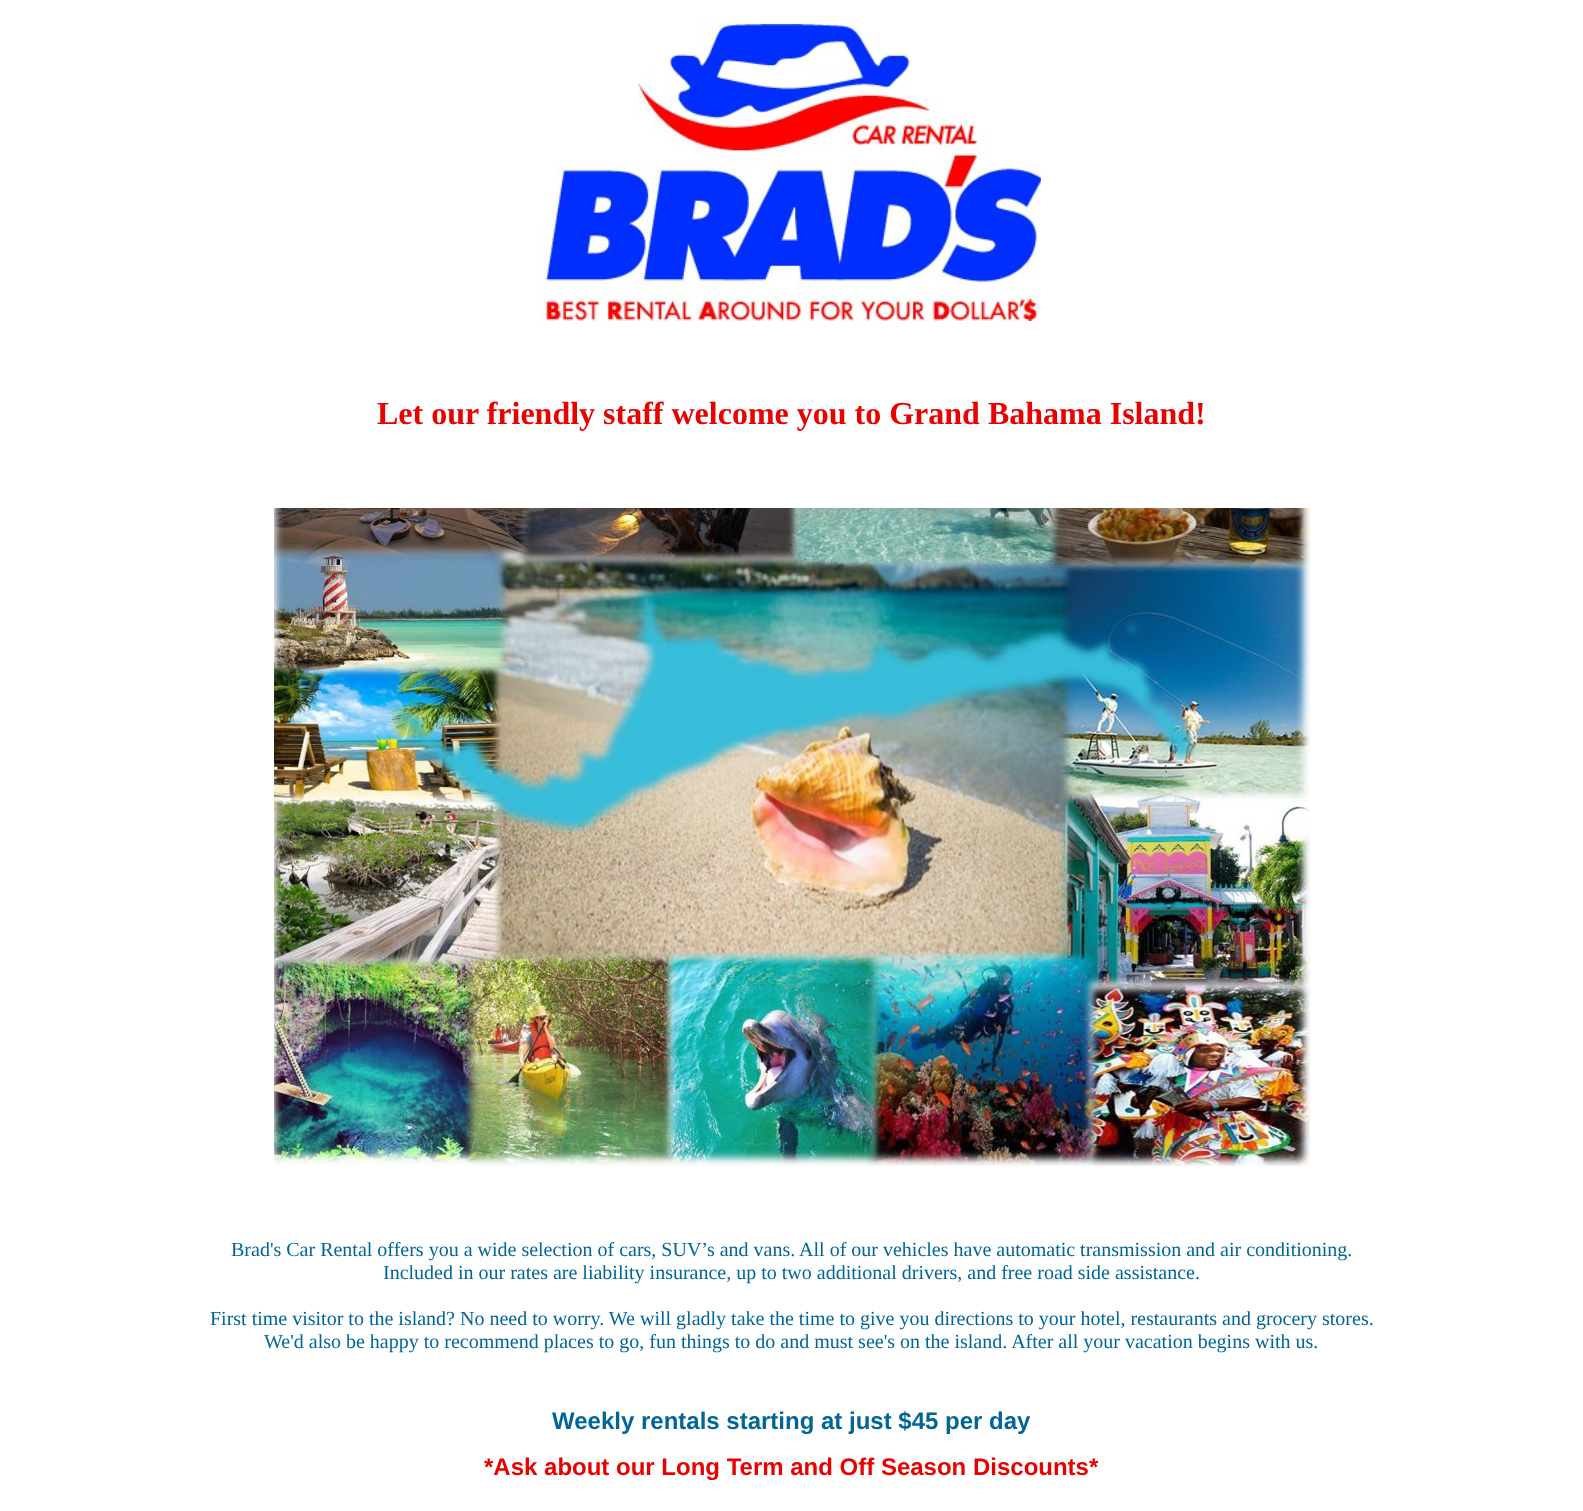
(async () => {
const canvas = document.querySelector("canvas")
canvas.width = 1583
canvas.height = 1511
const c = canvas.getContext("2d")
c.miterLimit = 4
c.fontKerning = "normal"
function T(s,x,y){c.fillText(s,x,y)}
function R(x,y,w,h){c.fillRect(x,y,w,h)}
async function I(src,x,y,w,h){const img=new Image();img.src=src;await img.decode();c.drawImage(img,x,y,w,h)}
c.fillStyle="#fff"
R(0,0,1583,1511)
await I("1.png",542,21,499,300)
c.font="bold 32px Liberation Serif"
c.fillStyle="#e90100"
T("Let our friendly staff welcome you to Grand Bahama Island!",377,424)
await I("2.png",274,508,1036,658)
c.font="20px Liberation Serif"
c.fillStyle="#069"
T("Brad's Car Rental offers you a wide selection of cars, SUV’s and vans. All of our vehicles have automatic transmission and air conditioning.",231,1256)
T("Included in our rates are liability insurance, up to two additional drivers, and free road side assistance.",383,1279)
T("First time visitor to the island? No need to worry. We will gladly take the time to give you directions to your hotel, restaurants and grocery stores.",210,1325)
T("We'd also be happy to recommend places to go, fun things to do and must see's on the island. After all your vacation begins with us.",264,1348)
c.font="bold 24px Liberation Sans"
T("Weekly rentals starting at just $45 per day",552,1429)
c.fillStyle="#e90100"
T("*Ask about our Long Term and Off Season Discounts*",484,1475)
})()
